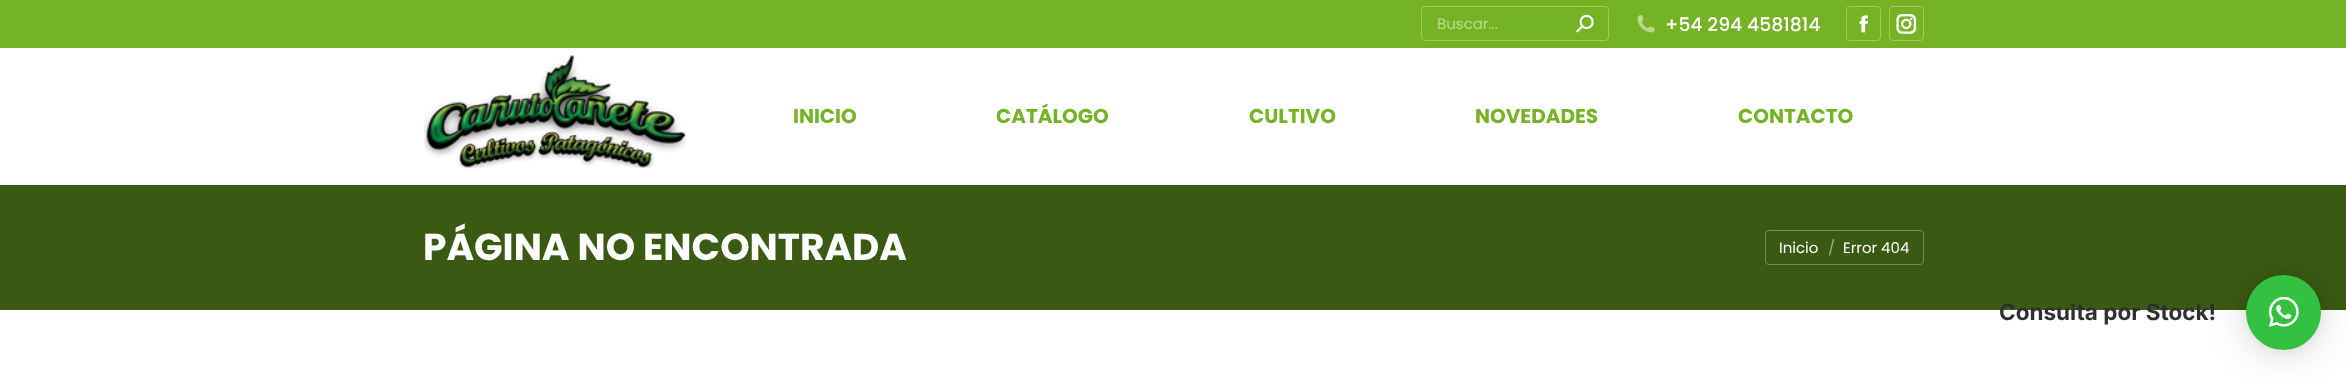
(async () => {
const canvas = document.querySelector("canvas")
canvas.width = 2346
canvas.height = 380
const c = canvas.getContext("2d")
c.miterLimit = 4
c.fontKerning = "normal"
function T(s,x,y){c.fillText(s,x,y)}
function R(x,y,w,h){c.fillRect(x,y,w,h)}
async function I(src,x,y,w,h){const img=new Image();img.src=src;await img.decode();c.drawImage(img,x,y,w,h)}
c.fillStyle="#fff"
R(0,0,2346,380)
c.fillStyle="#75b325"
R(0,0,2346,48)
c.beginPath()
c.roundRect(1421.5,6.5,187,34,3.5)
c.strokeStyle="#9eca66"
c.stroke()
c.font="15px Poppins"
c.fillStyle="#bad992"
T("Buscar...",1437,29)
await I("1.png",1576,14,18,19)
await I("2.png",1637,15,18,18)
c.font="500 18.75px Poppins"
c.fillStyle="#fff"
T("+54 294 4581814",1665,31)
c.beginPath()
c.roundRect(1846.5,6.5,34,34,3.5)
c.stroke()
await I("3.png",1859,15,9,18)
c.beginPath()
c.roundRect(1889.5,6.5,34,34,3.5)
c.stroke()
await I("4.png",1896,14,21,20)
await I("5.png",424,55,262,113)
c.font="bold 20px Poppins"
c.fillStyle="#75b325"
T("INICIO",793,123)
T("CATÁLOGO",996,123)
T("CULTIVO",1249,123)
T("NOVEDADES",1475,123)
T("CONTACTO",1738,123)
c.fillStyle="#3a5a13"
R(0,185,2346,125)
c.font="bold 37.5px Poppins"
c.fillStyle="#fff"
T("PÁGINA NO ENCONTRADA",423,260)
c.beginPath()
c.roundRect(1765.5,230.5,158,34,3.5)
c.strokeStyle="#758c5a"
c.stroke()
c.font="15px Poppins"
T("Inicio",1779,253)
c.fillStyle="#9dad89"
T("/",1828,253)
c.fillStyle="#fff"
T("Error 404",1843,253)
c.fillStyle="#00000029"
c.filter="blur(20px)"
c.beginPath()
c.roundRect(2246,278,75,75,37.5)
c.fill()
c.filter="none"
c.fillStyle="#0000000f"
c.filter="blur(4px)"
c.beginPath()
c.roundRect(2246,276,75,75,37.5)
c.fill()
c.filter="none"
c.fillStyle="#34c142"
c.beginPath()
c.arc(2283.5,312.5,37.5,0,7)
c.fill()
c.font="bold 22.5px Inter"
c.fillStyle="#303030"
T("Consulta por Stock!",1999,320)
await I("6.png",2268,296,31,31)
})()
